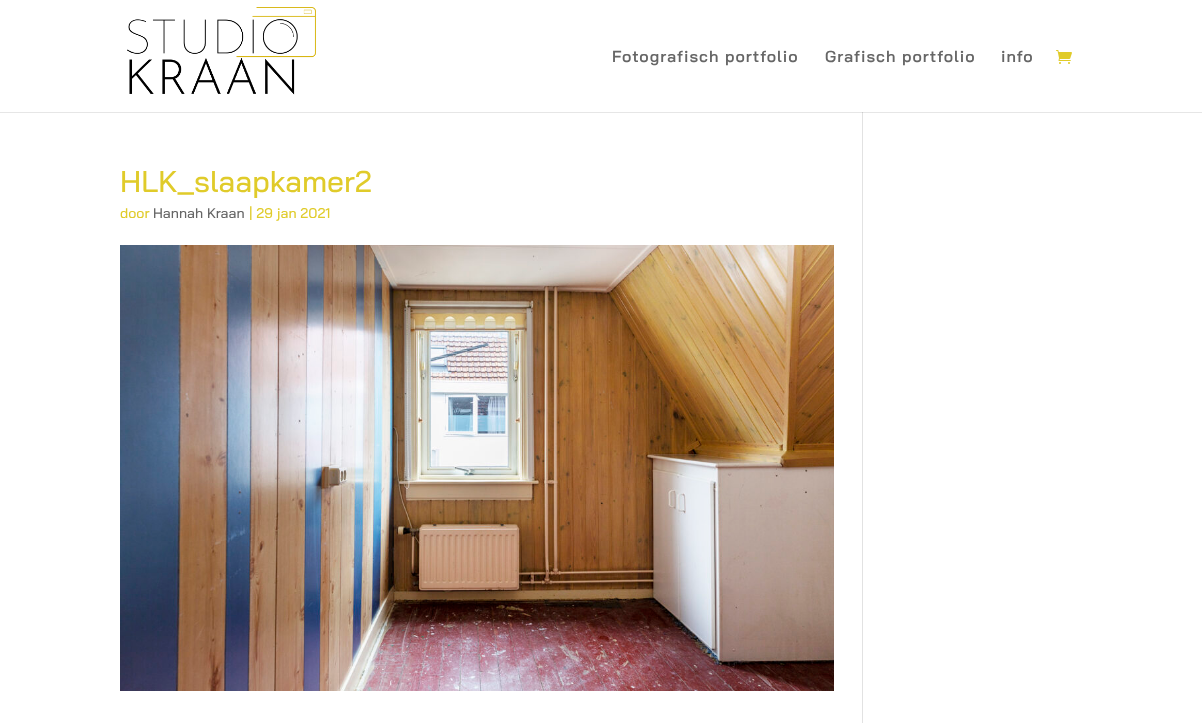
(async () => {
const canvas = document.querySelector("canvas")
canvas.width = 1202
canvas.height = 723
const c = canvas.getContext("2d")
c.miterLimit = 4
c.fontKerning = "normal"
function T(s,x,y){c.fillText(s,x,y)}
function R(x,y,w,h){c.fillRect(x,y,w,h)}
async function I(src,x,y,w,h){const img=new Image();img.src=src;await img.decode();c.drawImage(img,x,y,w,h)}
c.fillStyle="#fff"
R(0,0,1202,723)
c.fillStyle="#e6e6e6"
R(0,112,1202,1)
c.fillStyle="#e2e2e2"
R(862,111,1,612)
c.fillStyle="#fff"
R(862,111,1,1)
await I("1.png",127,7,189,88)
c.letterSpacing="1px"
c.font="600 16px Bai Jamjuree"
c.fillStyle="#666"
T("Fotografisch portfolio",612,62)
T("Grafisch portfolio",825,62)
T("info",1001,62)
await I("2.png",1056,50,16,14)
c.letterSpacing="0px"
c.font="500 30px Bai Jamjuree"
c.fillStyle="#e0cb2a"
T("HLK_slaapkamer2",120,192)
c.font="500 14px Bai Jamjuree"
T("door",120,218)
c.fillStyle="#666"
T("Hannah Kraan",153,218)
c.fillStyle="#e0cb2a"
T("| 29 jan 2021",249,218)
await I("3.png",120,245,714,446)
c.fillStyle="#cbcbcb"
R(862,112,1,1)
})()
